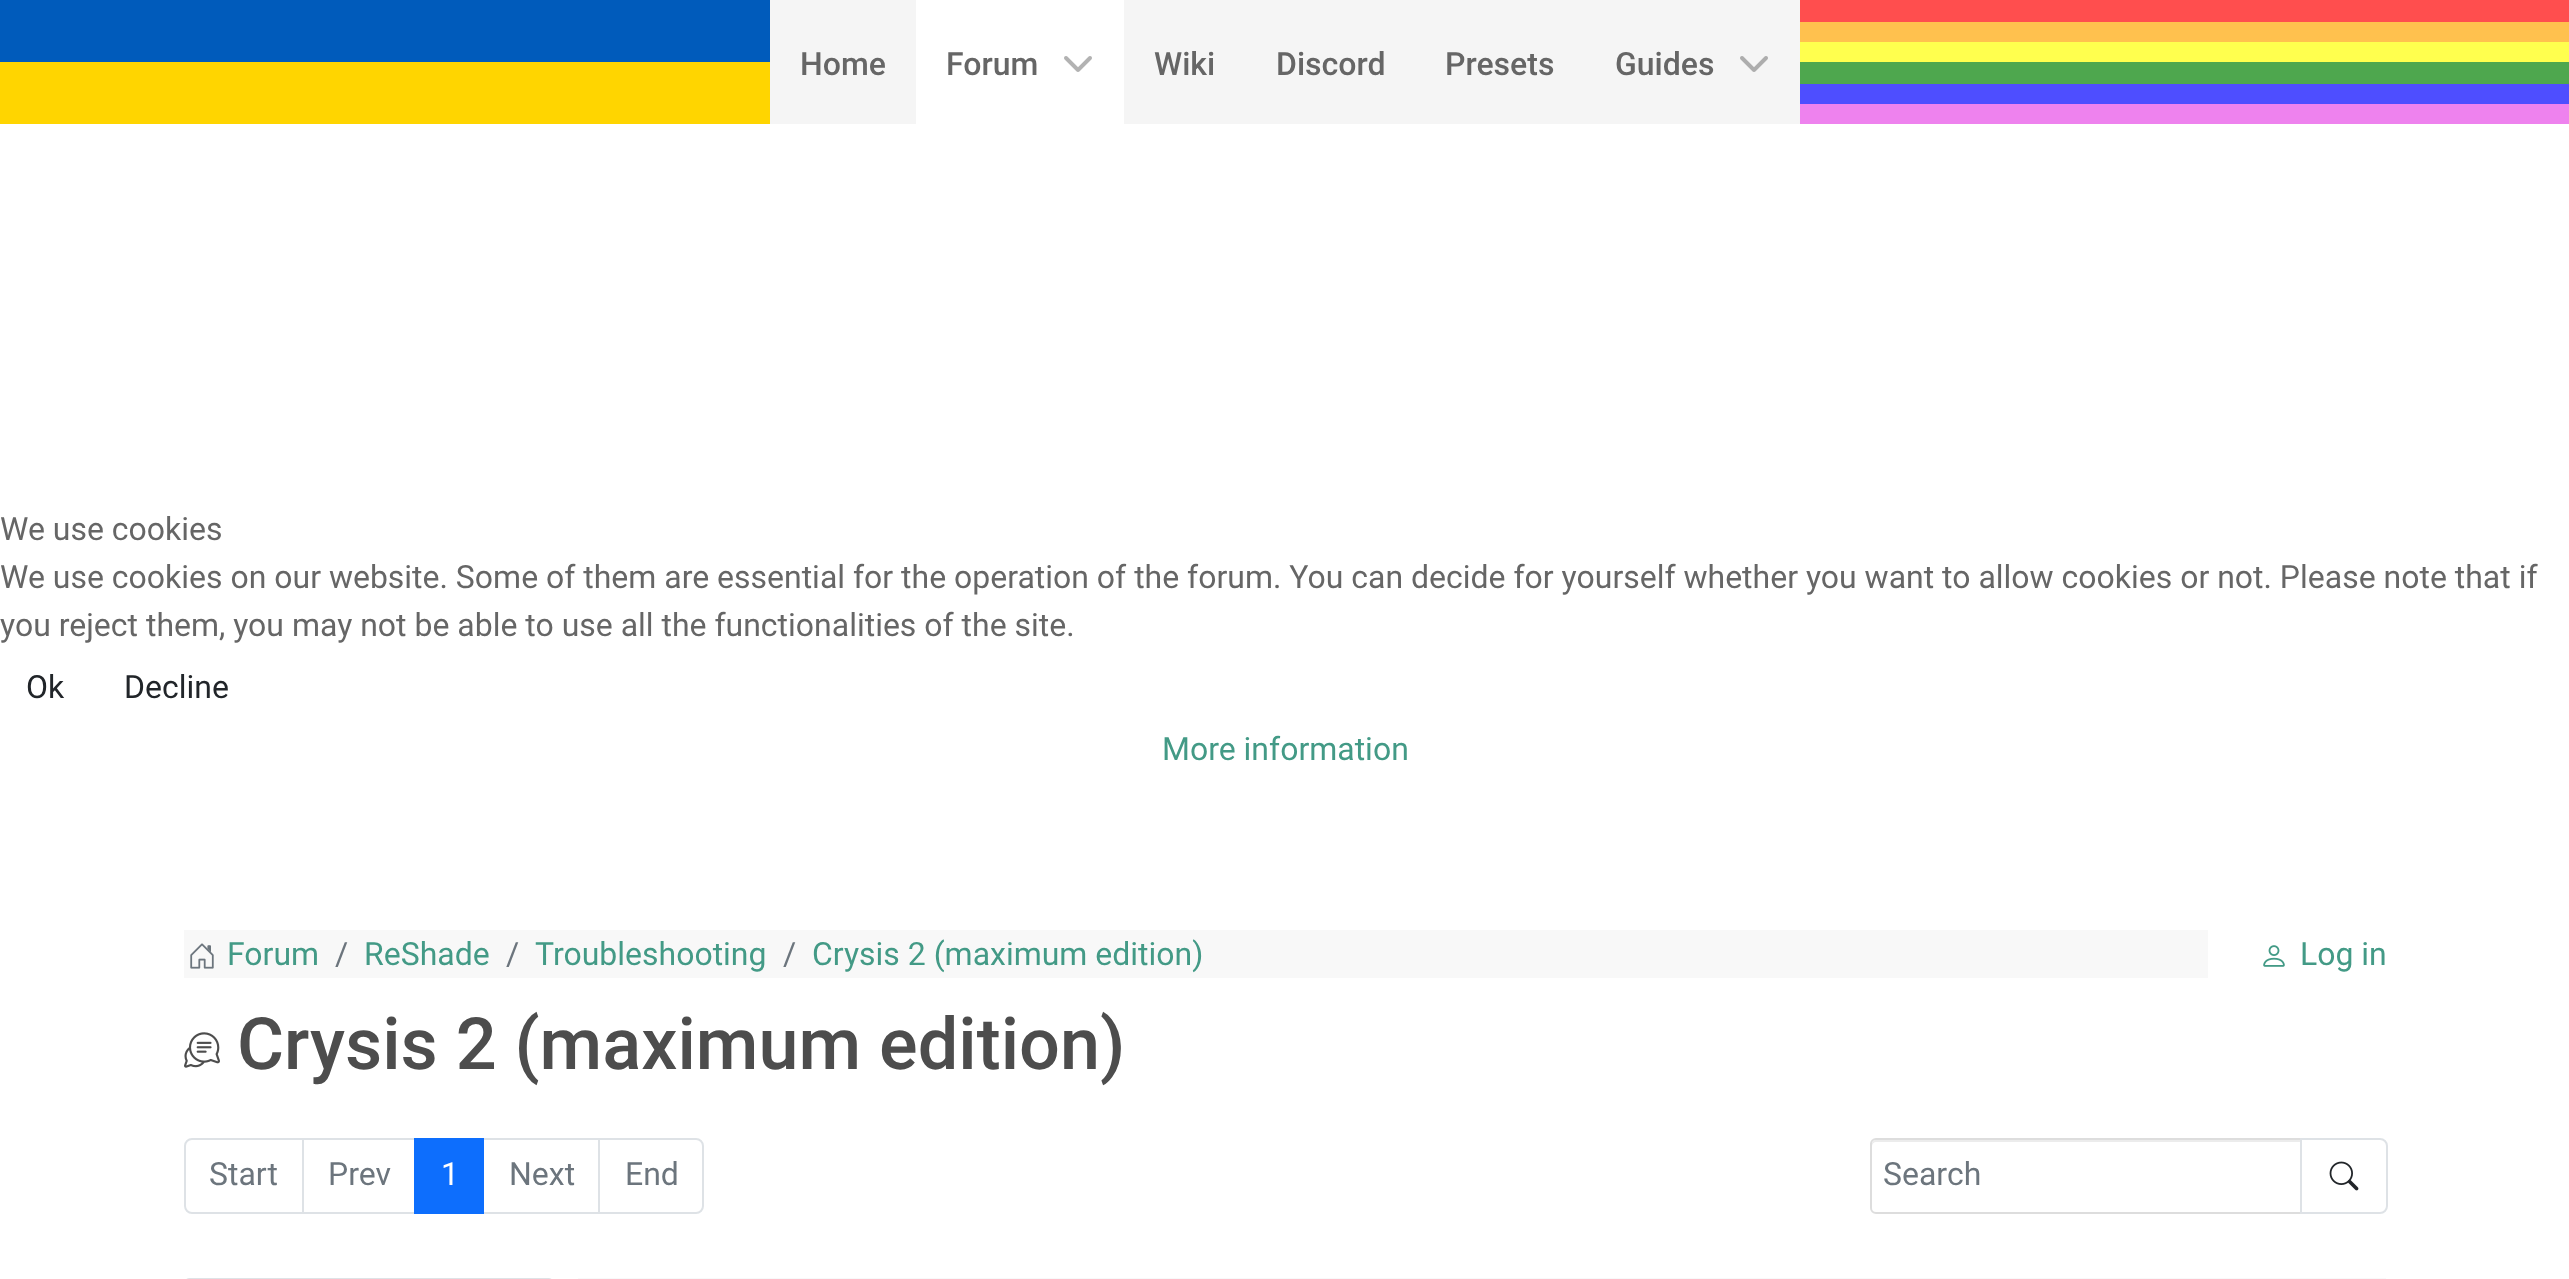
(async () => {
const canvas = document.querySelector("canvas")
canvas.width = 2569
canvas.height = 1279
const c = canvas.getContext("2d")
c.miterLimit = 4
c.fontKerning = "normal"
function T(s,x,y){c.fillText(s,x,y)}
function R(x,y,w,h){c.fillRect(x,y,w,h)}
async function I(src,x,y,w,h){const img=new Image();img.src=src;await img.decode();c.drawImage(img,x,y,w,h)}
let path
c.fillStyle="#fff"
R(0,0,2569,1279)
c.fillStyle="#ee82ee"
R(1800,104,769,20)
c.fillStyle="#4e4eff"
R(1800,84,769,20)
c.fillStyle="#4ea74e"
R(1800,62,769,22)
c.fillStyle="#ffff4e"
R(1800,42,769,20)
c.fillStyle="#ffc14e"
R(1800,22,769,20)
c.fillStyle="#ff4e4e"
R(1800,0,769,22)
c.fillStyle="#005bbb"
R(0,0,770,62)
c.fillStyle="#ffd500"
R(0,62,770,62)
c.fillStyle="#f5f5f5"
R(770,0,146,124)
c.font="500 32px Roboto"
c.fillStyle="#666"
T("Home",800,75)
T("Forum",946,75)
await I("1.png",1064,56,28,16)
c.fillStyle="#f5f5f5"
R(1124,0,676,124)
c.fillStyle="#666"
T("Wiki",1154,75)
T("Discord",1276,75)
T("Presets",1445,75)
T("Guides",1615,75)
await I("2.png",1740,56,28,16)
c.fillStyle="#f8f8f8"
R(184,930,2024,48)
await I("3.png",190,943,24,26)
c.font="32px Roboto"
c.fillStyle="#439a86"
T("Forum",227,965)
c.fillStyle="#6c757d"
T("/",335,965)
c.fillStyle="#439a86"
T("ReShade",364,965)
c.fillStyle="#6c757d"
T("/",506,965)
c.fillStyle="#439a86"
T("Troubleshooting",535,965)
c.fillStyle="#6c757d"
T("/",783,965)
c.fillStyle="#439a86"
T("Crysis 2 (maximum edition)",812,965)
await I("4.png",2263,945,22,22)
T("Log in",2300,965)
await I("5.png",184,1032,36,36)
c.font="500 72px Roboto"
c.fillStyle="#4d4d4d"
T("Crysis 2 (maximum edition)",237,1069)
c.beginPath()
c.roundRect(185,1139,118,74,[7,0,0,7])
c.strokeStyle="#dee2e6"
c.lineWidth=2
c.stroke()
c.font="32px Roboto"
c.fillStyle="#6c757d"
T("Start",209,1185)
c.strokeRect(303,1139,112,74)
T("Prev",328,1185)
c.strokeRect(483,1139,116,74)
c.fillStyle="#0d6efd"
R(414,1138,70,76)
c.fillStyle="#fff"
T("1",441,1185)
c.fillStyle="#6c757d"
T("Next",509,1185)
c.fillStyle="#fff"
c.beginPath()
c.roundRect(599,1139,104,74,[0,7,7,0])
c.fill()
c.stroke()
c.fillStyle="#6c757d"
T("End",625,1185)
c.fillStyle="#ececec"
path = new Path2D("M1876 1142h424v-2h-424c-2 0-4 2-4 4v2c0-2 2-4 4-4z")
c.fill(path)
c.beginPath()
c.roundRect(1871,1139,430,74,[5,0,0,5])
c.strokeStyle="#ddd"
c.stroke()
c.fillStyle="#6c757d"
T("Search",1883,1185)
c.beginPath()
c.roundRect(2301,1139,86,74,[0,7,7,0])
c.strokeStyle="#dee2e6"
c.stroke()
await I("6.png",2329,1161,30,30)
c.beginPath()
c.roundRect(185,1279,368,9,7)
c.stroke()
c.fillStyle="#f8f9fa"
R(578,1278,1808,1)
c.fillStyle="#666"
T("We use cookies",0,540)
T("We use cookies on our website. Some of them are essential for the operation of the forum. You can decide for yourself whether you want to allow cookies or not. Please note that if",0,588)
T("you reject them, you may not be able to use all the functionalities of the site.",0,636)
c.fillStyle="#212529"
T("Ok",26,698)
T("Decline",124,698)
c.fillStyle="#439a86"
T("More information",1162,760)
})()
